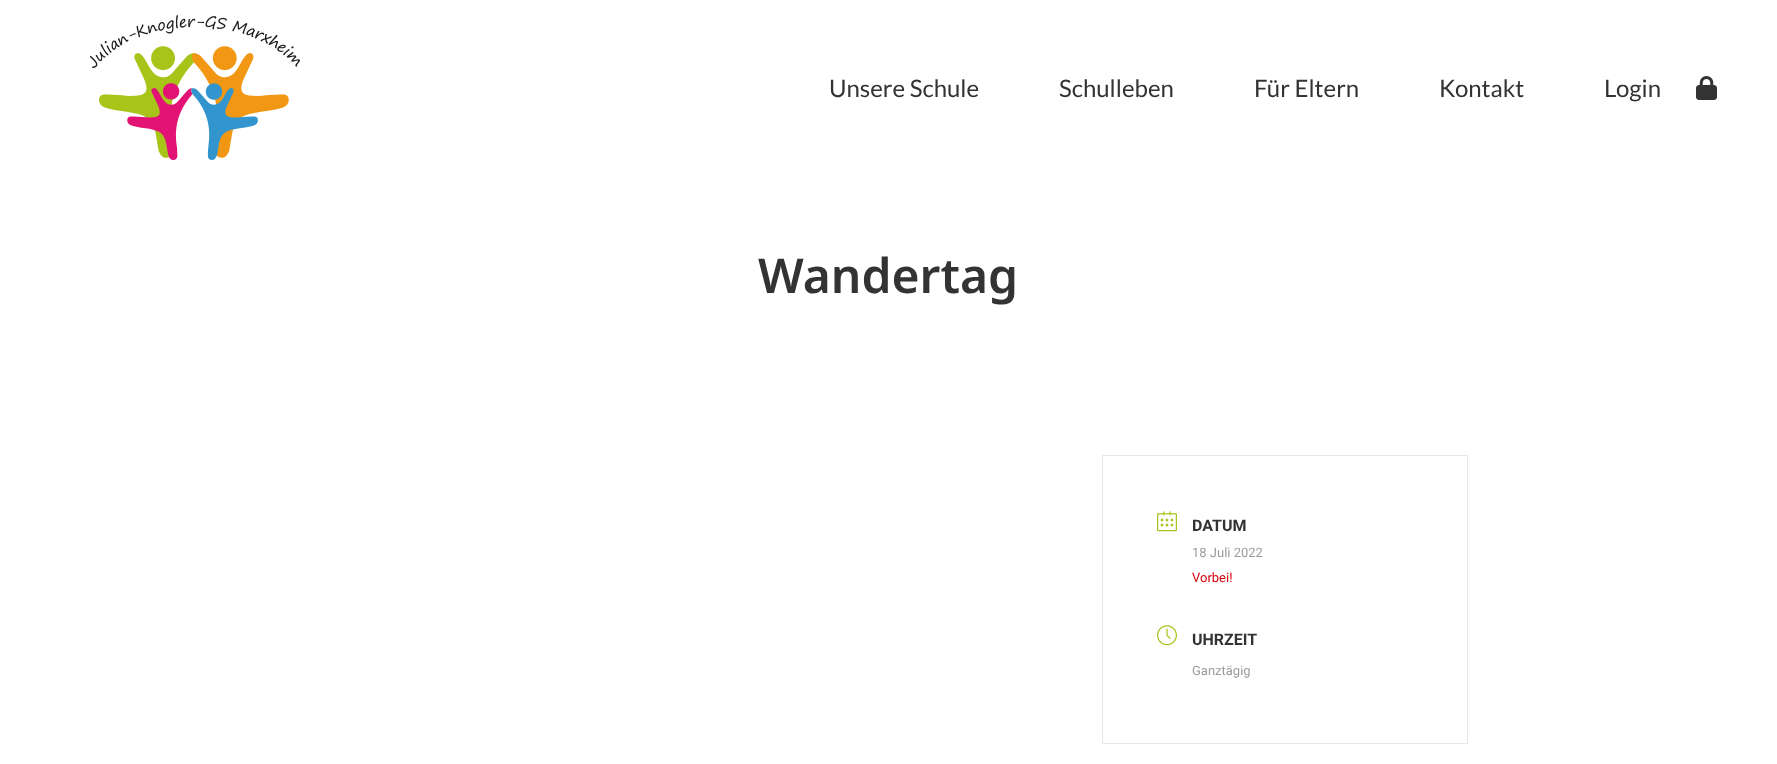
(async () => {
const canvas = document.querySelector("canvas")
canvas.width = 1777
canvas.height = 764
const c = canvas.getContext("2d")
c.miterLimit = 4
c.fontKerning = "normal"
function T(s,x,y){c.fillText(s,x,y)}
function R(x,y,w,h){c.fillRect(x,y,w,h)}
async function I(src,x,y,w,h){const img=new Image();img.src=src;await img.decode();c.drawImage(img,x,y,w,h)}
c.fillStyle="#fff"
R(0,0,1777,764)
await I("1.png",90,15,210,145)
c.font="24px Lato"
c.fillStyle="#333"
T("Unsere Schule",829,97)
T("Schulleben",1059,97)
T("Für Eltern",1254,97)
T("Kontakt",1439,97)
T("Login",1604,97)
await I("2.png",1696,76,21,24)
c.font="600 48px Noto Sans"
T("Wandertag",758,293)
c.strokeStyle="#e6e7e8"
c.strokeRect(1102.5,455.5,365,288)
await I("3.png",1157,511,20,21)
c.font="bold 16px Roboto"
T("DATUM",1192,531)
c.font="13px Roboto"
c.fillStyle="#9b9b9b"
T("18 Juli 2022",1192,557)
c.fillStyle="#d8000c"
T("Vorbei!",1192,582)
await I("4.png",1157,625,20,21)
c.font="bold 16px Roboto"
c.fillStyle="#333"
T("UHRZEIT",1192,645)
c.font="13px Roboto"
c.fillStyle="#9b9b9b"
T("Ganztägig",1192,675)
})()
